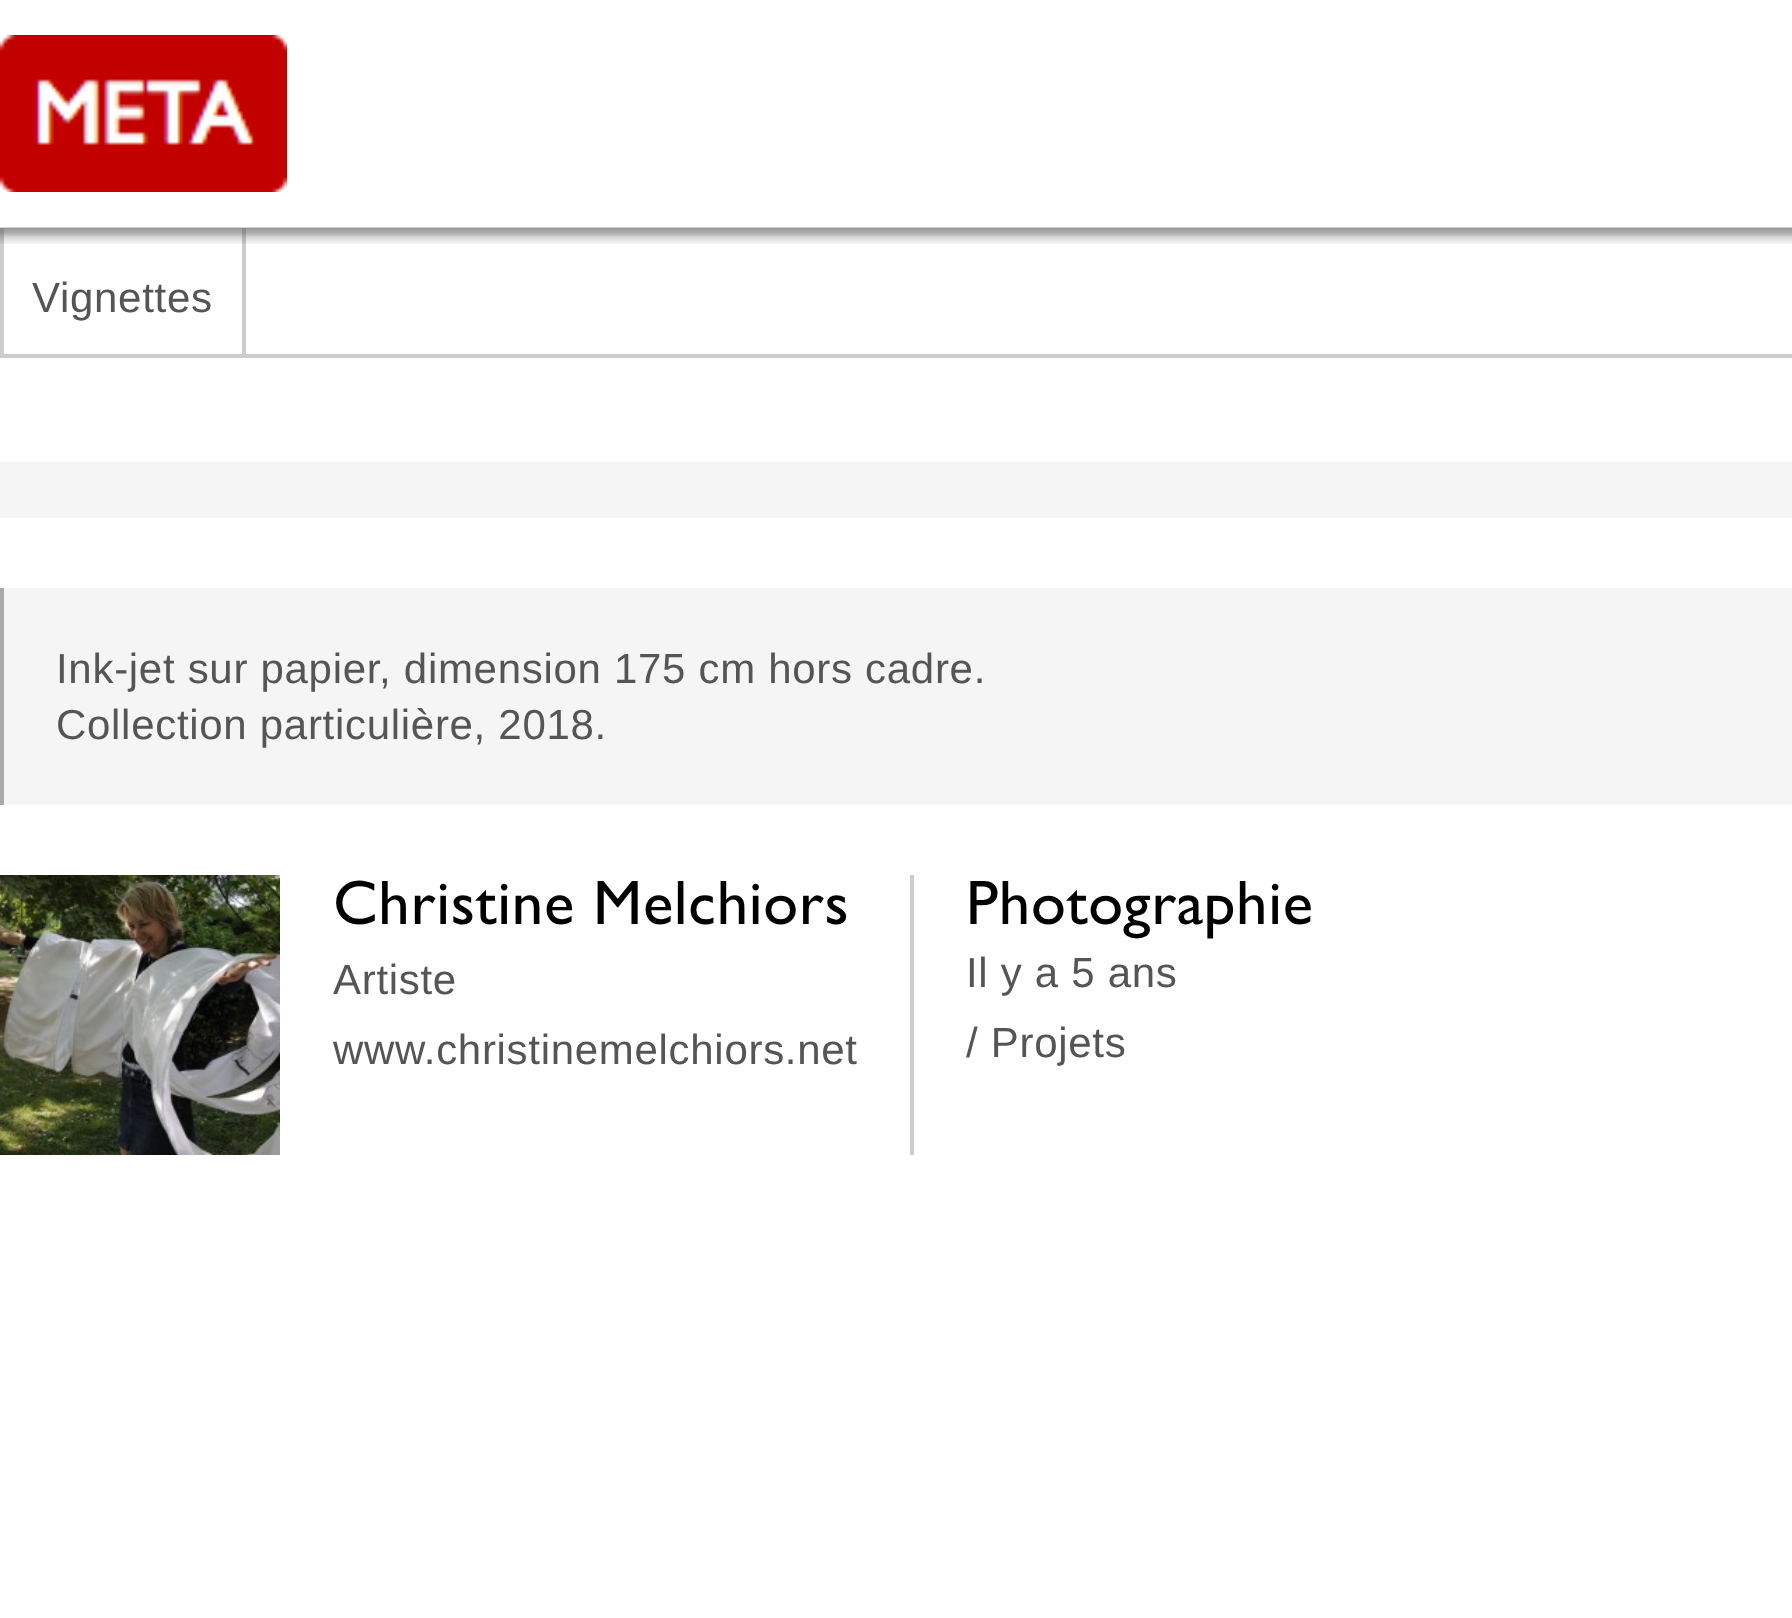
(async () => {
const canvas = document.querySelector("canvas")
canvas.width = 1792
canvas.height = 1618
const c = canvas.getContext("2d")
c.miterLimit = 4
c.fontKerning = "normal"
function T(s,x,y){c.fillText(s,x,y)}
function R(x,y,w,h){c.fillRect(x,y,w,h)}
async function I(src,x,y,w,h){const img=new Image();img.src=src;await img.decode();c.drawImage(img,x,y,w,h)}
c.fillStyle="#fff"
R(0,0,1792,1618)
await I("4.png",4,228,1788,8)
c.fillStyle="#ccc"
R(0,221,4,133)
R(242,221,4,133)
await I("1.png",0,228,1792,16)
c.fillStyle="#fff"
R(0,221,246,7)
await I("2.png",0,35,287,157)
await I("3.png",0,227,1792,17)
c.fillStyle="#ccc"
R(0,354,1792,4)
c.letterSpacing="0.7px"
c.font="42px Liberation Sans"
c.fillStyle="#555"
T("Vignettes",32,312)
c.fillStyle="#f5f5f5"
R(0,462,1792,56)
R(4,588,1788,217)
c.fillStyle="#aaa"
R(0,588,4,217)
c.fillStyle="#555"
T("Ink-jet sur papier, dimension 175 cm hors cadre.",56,683)
T("Collection particulière, 2018.",56,739)
await I("5.png",0,875,280,280)
c.font="63px Gill Sans"
c.fillStyle="#000"
T("Christine Melchiors",333,924)
c.font="42px Liberation Sans"
c.fillStyle="#555"
T("Artiste",333,994)
T("www.christinemelchiors.net",333,1064)
c.fillStyle="#ccc"
R(910,875,4,280)
c.font="63px Gill Sans"
c.fillStyle="#000"
T("Photographie",966,924)
c.font="42px Liberation Sans"
c.fillStyle="#555"
T("Il y a 5 ans",966,987)
T("/ Projets",966,1057)
})()
